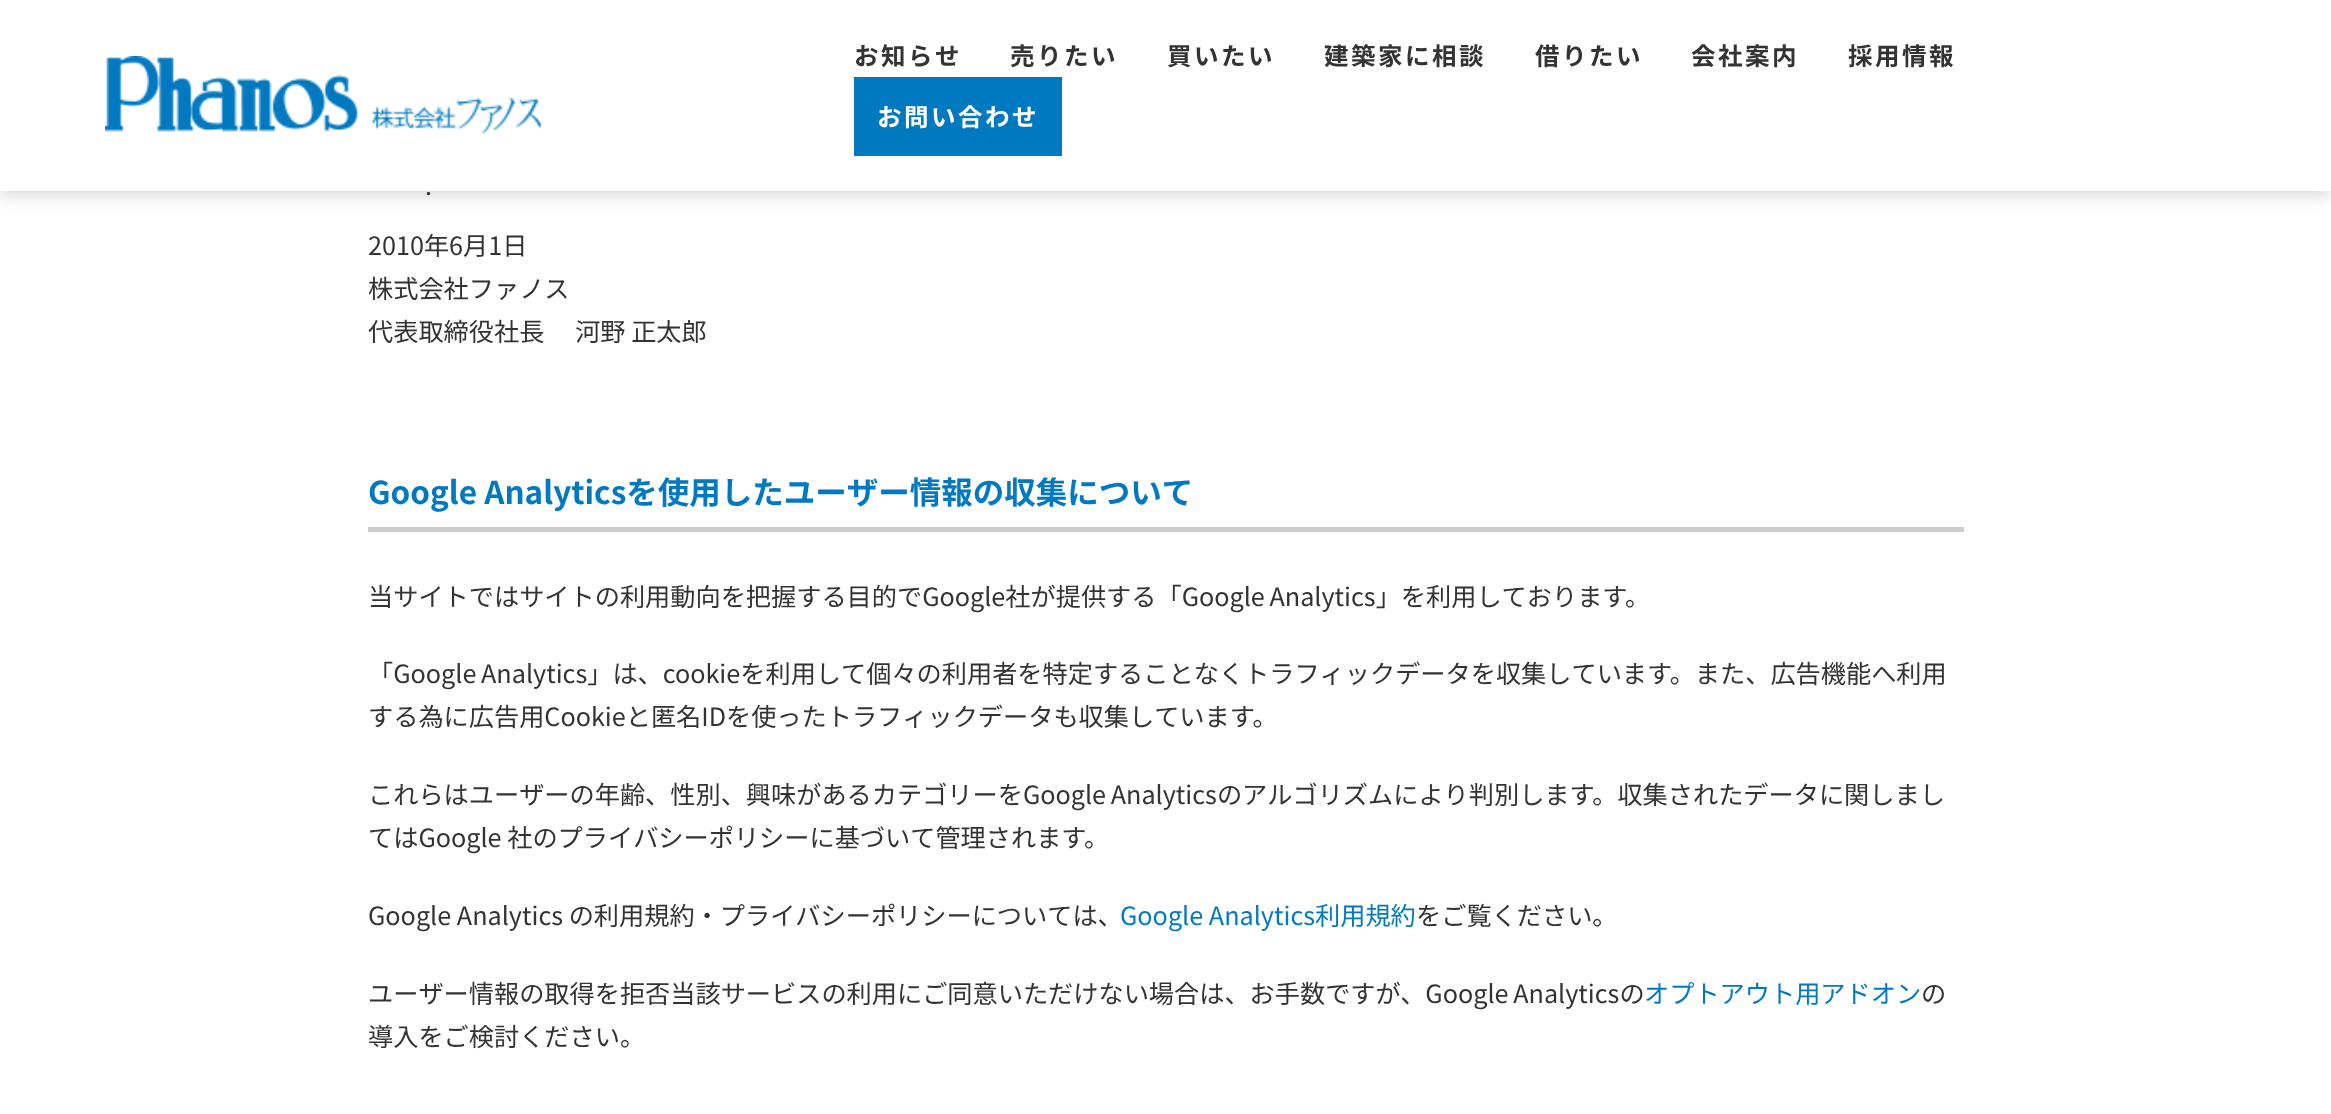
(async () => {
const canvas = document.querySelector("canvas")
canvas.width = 2331
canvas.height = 1114
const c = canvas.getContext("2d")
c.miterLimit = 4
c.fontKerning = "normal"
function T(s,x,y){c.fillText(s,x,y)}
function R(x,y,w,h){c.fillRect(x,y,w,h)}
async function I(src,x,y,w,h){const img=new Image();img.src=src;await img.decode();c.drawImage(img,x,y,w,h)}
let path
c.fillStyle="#fff"
R(0,0,2331,1114)
c.save()
path = new Path2D("M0 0h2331v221h-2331zm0 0h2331v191h-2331z")
c.clip(path,"evenodd")
c.fillStyle="#00000033"
c.filter="blur(9px)"
c.beginPath()
c.rect(0,2,2331,191)
c.fill()
c.filter="none"
c.restore()
c.fillStyle="#ffffffe6"
R(0,190,2331,1)
await I("1.png",105,56,437,78)
c.letterSpacing="2.5px"
c.font="bold 24.5px Noto Sans JP"
c.fillStyle="#333"
T("お知らせ",854,65)
T("売りたい",1010,65)
T("買いたい",1167,65)
T("建築家に相談",1324,65)
T("借りたい",1535,65)
T("会社案内",1691,65)
T("採用情報",1848,65)
c.fillStyle="#0079c0"
R(854,77,208,79)
c.fillStyle="#fff"
T("お問い合わせ",877,126)
c.letterSpacing="0px"
c.font="25.2px Noto Sans JP"
c.fillStyle="#333"
T(".",425,195)
T("2010年6月1日",368,255)
T("株式会社ファノス",368,298)
T("代表取締役社長　 河野 正太郎",368,341)
c.fillStyle="#ccc"
R(368,527,1596,5)
c.font="bold 31.5px Noto Sans JP"
c.fillStyle="#0079c0"
T("Google Analyticsを使用したユーザー情報の収集について",368,504)
c.wordSpacing="-1px"
c.font="25.2px Noto Sans JP"
c.fillStyle="#333"
T("当サイトではサイトの利用動向を把握する目的でGoogle社が提供する「Google Analytics」を利用しております。",368,606)
T("「Google Analytics」は、cookieを利用して個々の利用者を特定することなくトラフィックデータを収集しています。また、広告機能へ利用",368,683)
c.wordSpacing="0px"
T("する為に広告用Cookieと匿名IDを使ったトラフィックデータも収集しています。",368,726)
c.wordSpacing="-1px"
T("これらはユーザーの年齢、性別、興味があるカテゴリーをGoogle Analyticsのアルゴリズムにより判別します。収集されたデータに関しまし",368,804)
c.wordSpacing="0px"
T("てはGoogle 社のプライバシーポリシーに基づいて管理されます。",368,847)
T("Google Analytics の利用規約・プライバシーポリシーについては、",368,925)
c.fillStyle="#0079c0"
T("Google Analytics利用規約",1120,925)
c.fillStyle="#333"
T("をご覧ください。",1416,925)
c.wordSpacing="-1px"
T("ユーザー情報の取得を拒否当該サービスの利用にご同意いただけない場合は、お手数ですが、Google Analyticsの",368,1003)
c.wordSpacing="0px"
c.fillStyle="#0079c0"
T("オプトアウト用アドオン",1644,1003)
c.fillStyle="#333"
T("の",1921,1003)
T("導入をご検討ください。",368,1046)
})()
